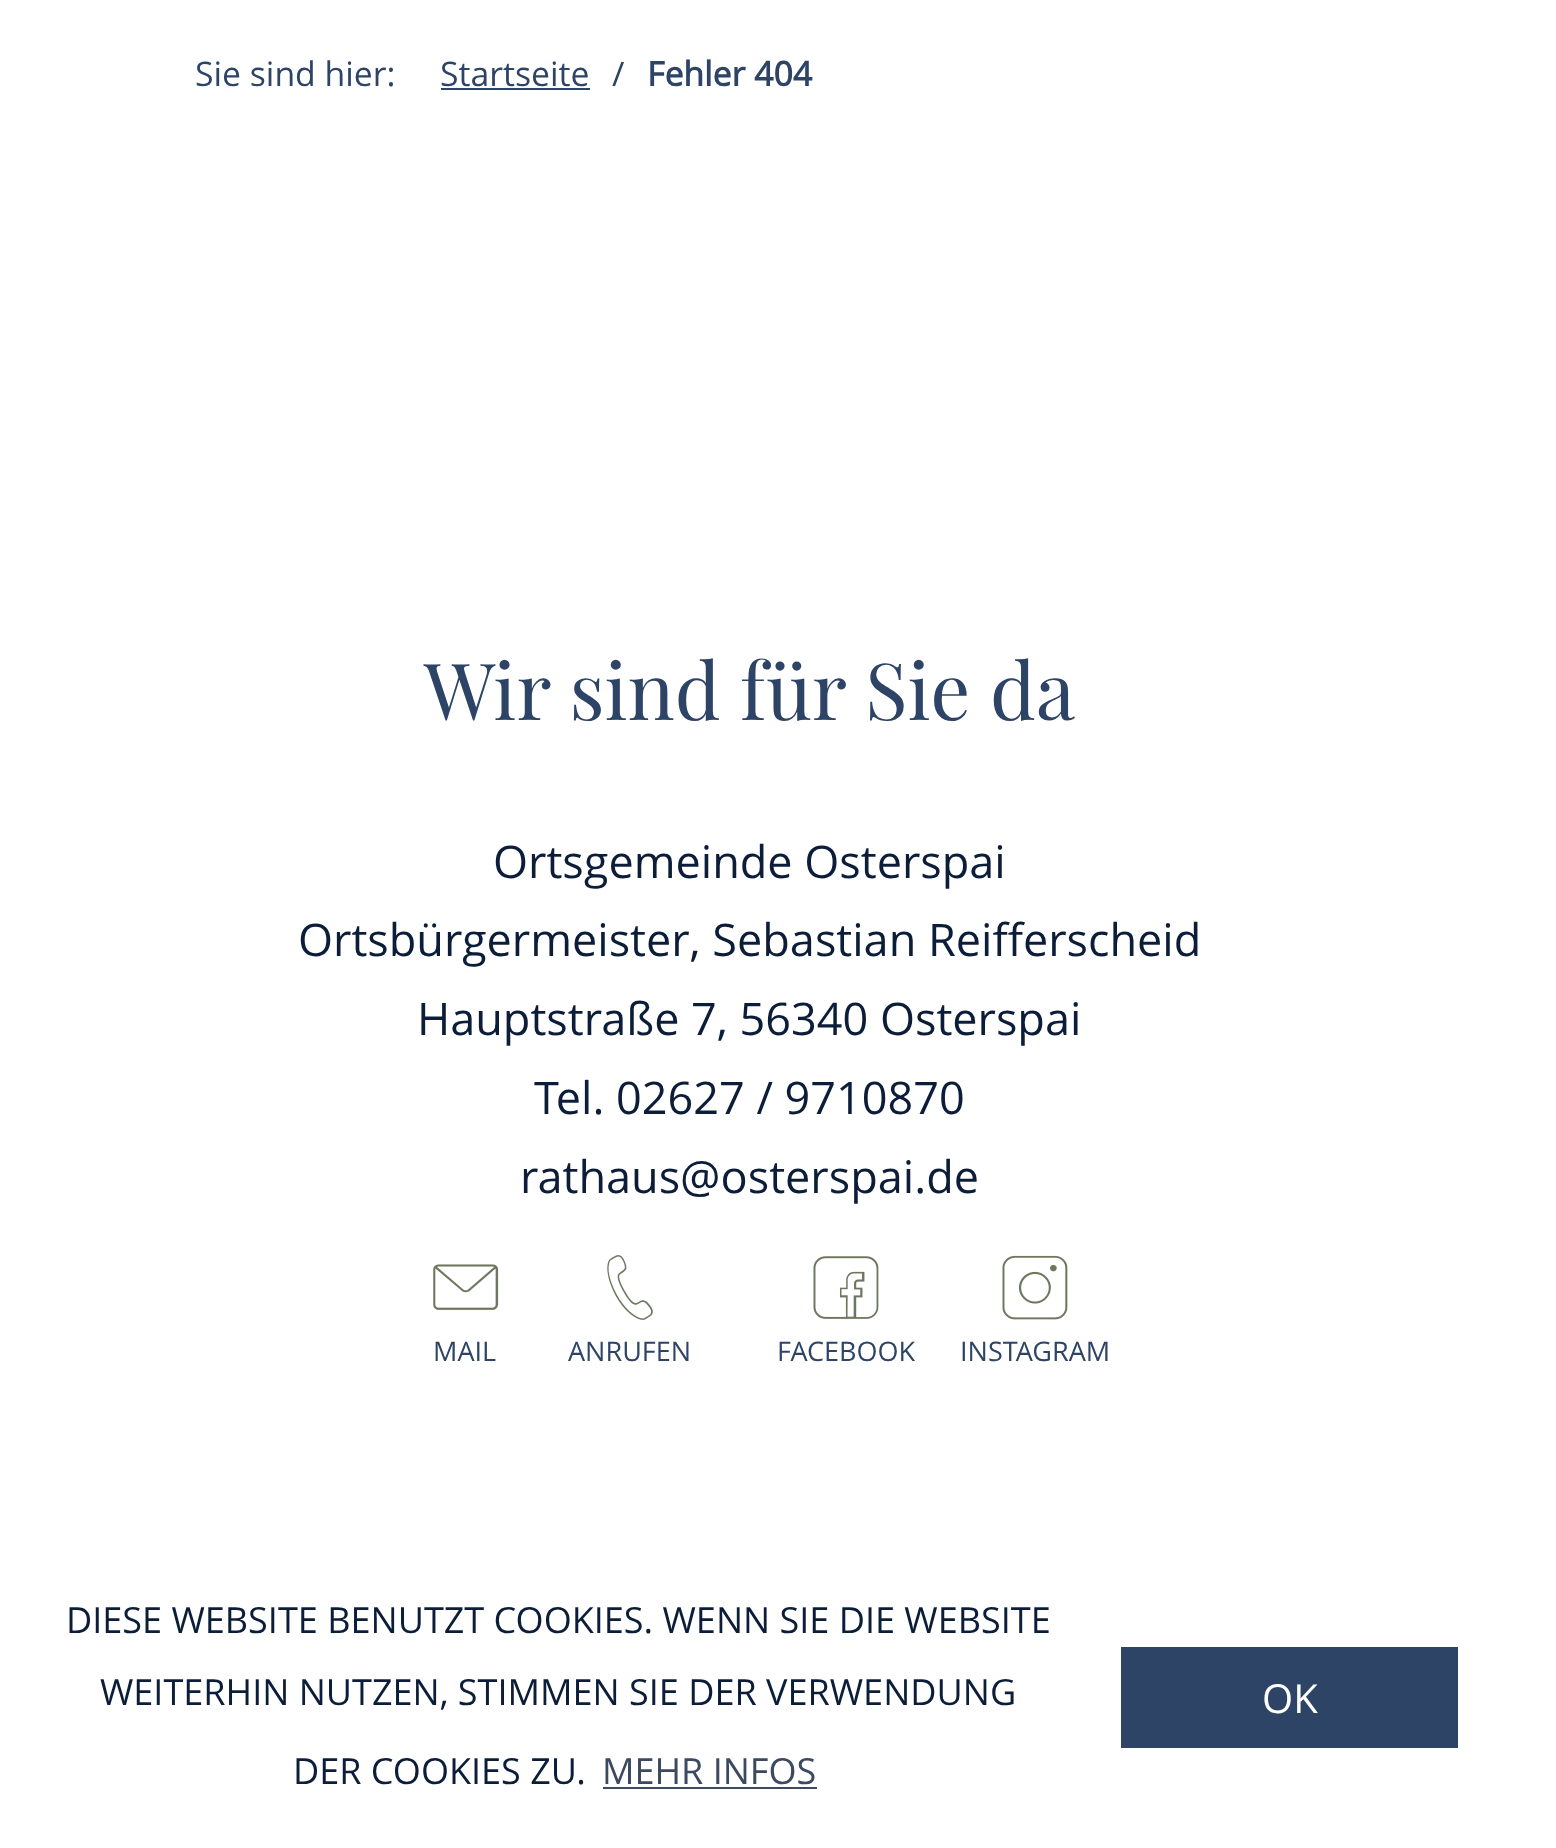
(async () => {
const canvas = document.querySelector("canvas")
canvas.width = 1556
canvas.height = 1848
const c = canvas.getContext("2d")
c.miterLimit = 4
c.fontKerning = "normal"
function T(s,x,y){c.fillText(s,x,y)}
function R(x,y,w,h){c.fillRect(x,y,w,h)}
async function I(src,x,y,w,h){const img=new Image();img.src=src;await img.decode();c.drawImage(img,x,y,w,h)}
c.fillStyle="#fff"
R(0,0,1556,1848)
c.font="33.75px Open Sans"
c.fillStyle="#2d4467"
T("Sie sind hier:",195,86)
T("Startseite",440,86)
R(441,88,149,2)
T("/",612,86)
c.font="bold 33.75px Open Sans"
T("Fehler 404",647,86)
c.font="78.75px Playfair Display"
T("Wir sind für Sie da",424,720)
c.font="45px Open Sans"
c.fillStyle="#0b1d38"
T("Ortsgemeinde Osterspai",493,878)
T("Ortsbürgermeister, Sebastian Reifferscheid",298,956)
T("Hauptstraße 7, 56340 Osterspai",417,1035)
T("Tel. 02627 / 9710870",534,1114)
T("rathaus@osterspai.de",520,1193)
await I("1.png",433,1264,66,46)
c.font="27px Open Sans"
c.fillStyle="#2d4467"
T("MAIL",433,1361)
await I("2.png",607,1255,46,65)
T("ANRUFEN",568,1361)
await I("3.png",813,1256,66,63)
T("FACEBOOK",777,1361)
await I("4.png",1002,1255,66,65)
T("INSTAGRAM",960,1361)
c.font="36px Open Sans"
c.fillStyle="#0b1d38"
T("DIESE WEBSITE BENUTZT COOKIES. WENN SIE DIE WEBSITE",66,1633)
T("WEITERHIN NUTZEN, STIMMEN SIE DER VERWENDUNG",100,1705)
T("DER COOKIES ZU.",293,1784)
c.fillStyle="#3c4a60"
T("MEHR INFOS",602,1784)
R(603,1787,214,2)
c.fillStyle="#2d4467"
R(1121,1647,337,101)
c.font="40px Open Sans"
c.fillStyle="#fff"
T("OK",1262,1713)
})()
